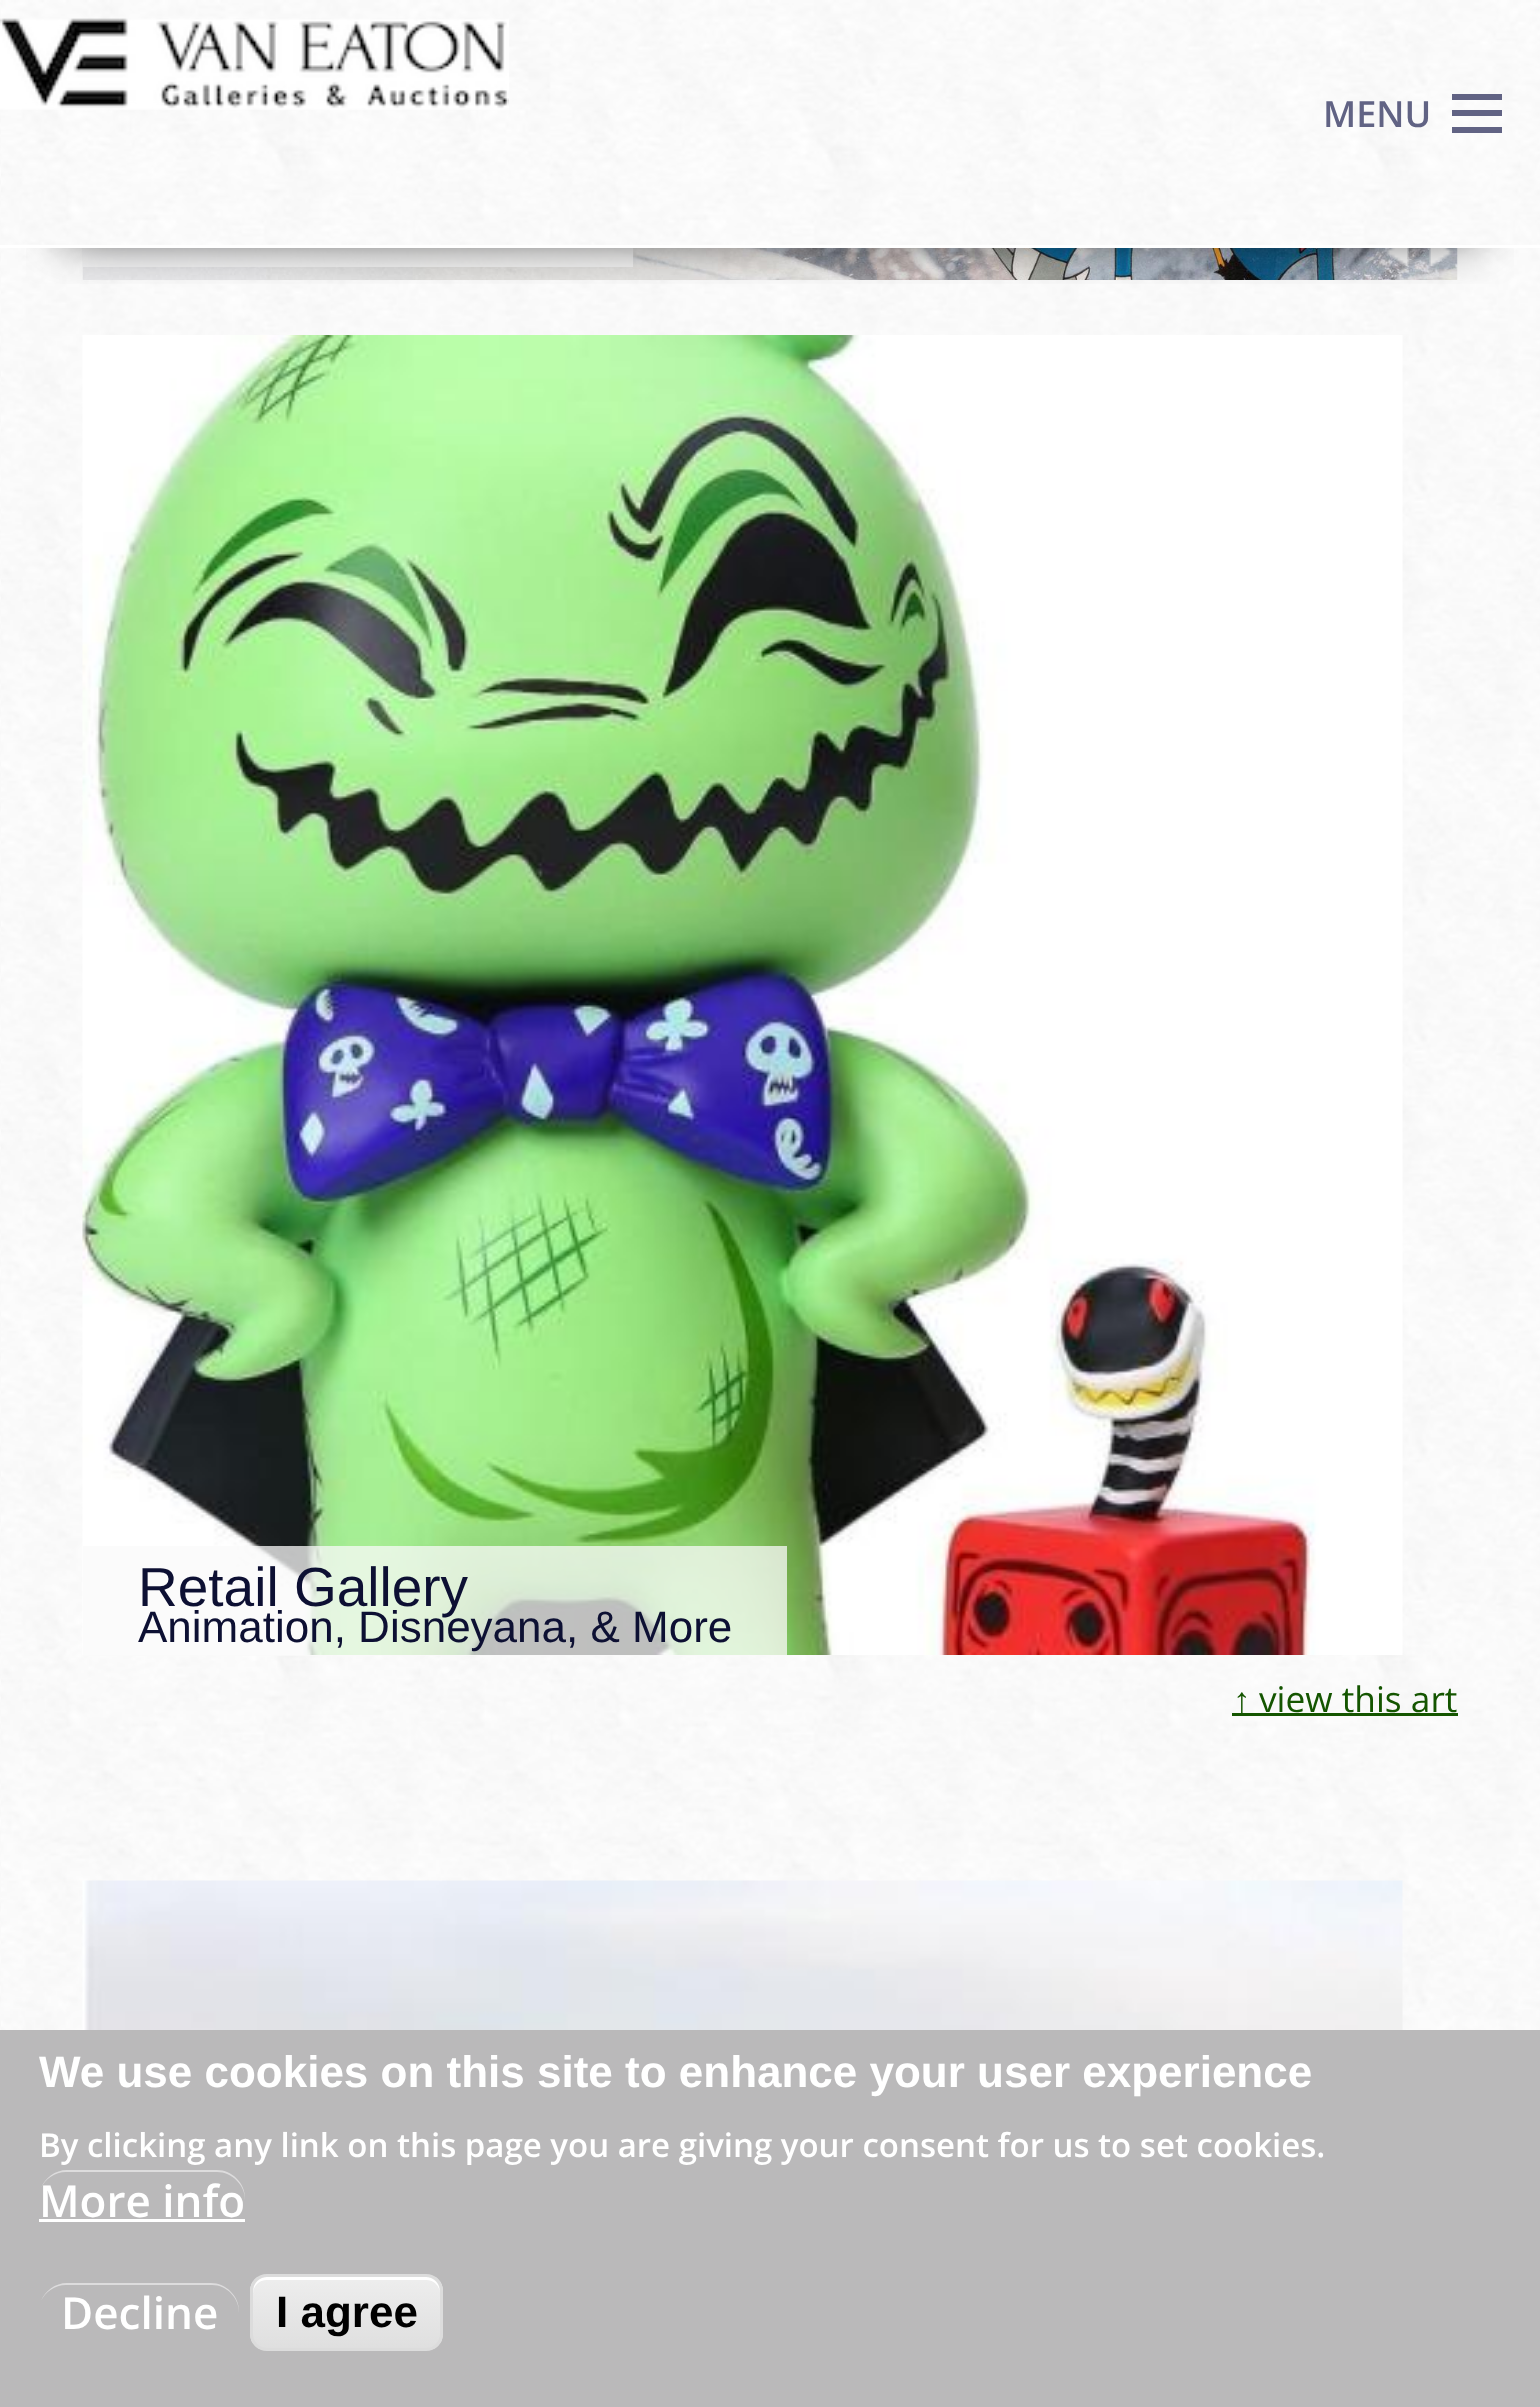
(async () => {
const canvas = document.querySelector("canvas")
canvas.width = 1540
canvas.height = 2407
const c = canvas.getContext("2d")
c.miterLimit = 4
c.fontKerning = "normal"
function T(s,x,y){c.fillText(s,x,y)}
function R(x,y,w,h){c.fillRect(x,y,w,h)}
async function I(src,x,y,w,h){const img=new Image();img.src=src;await img.decode();c.drawImage(img,x,y,w,h)}
let gradient, path
c.fillStyle="#fff"
R(0,0,1540,2407)
await I("1.png",0,0,1,2030)
await I("2.png",1,248,1539,1782)
await I("3.png",1,0,1539,245)
await I("5.png",82,248,1376,32)
c.fillStyle="#fafafabf"
R(83,248,550,19)
await I("6.png",1385,248,24,19)
await I("7.png",1429,248,24,19)
c.save()
c.beginPath()
c.rect(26,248,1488,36)
c.clip()
c.fillStyle="#000"
c.filter="blur(26px)"
c.beginPath()
c.rect(63,110,1414,121)
c.fill()
c.filter="none"
c.restore()
c.fillStyle="#fff"
R(0,245,1514,3)
await I("4.png",0,18,509,92)
c.fillStyle="#616384"
R(1452,127,50,6)
R(1452,110,50,6)
R(1452,94,50,6)
c.font="600 36px Open Sans"
T("MENU",1323,127)
await I("8.png",82,335,1321,1320)
c.fillStyle="#fafafabf"
R(83,1546,704,110)
c.font="55px Liberation Sans"
c.fillStyle="#0d1033"
T("Retail Gallery",138,1606)
c.font="44px Liberation Sans"
T("Animation, Disneyana, & More",138,1642)
c.fillStyle="#145500"
R(1232,1713,226,3)
c.font="35.25px Liberation Sans"
T("↑",1233,1712)
c.font="35.25px Open Sans"
T("view this art",1259,1712)
await I("9.png",82,1880,1321,150)
c.fillStyle="#bab9ba"
R(0,2030,1540,377)
c.font="bold 44px Liberation Sans"
c.fillStyle="#fff"
T("We use cookies on this site to enhance your user experience",39,2087)
c.font="600 33px Open Sans"
T("By clicking any link on this page you are giving your consent for us to set cookies.",39,2157)
c.fillStyle="#dddcdd"
path = new Path2D("M66 2172h151c15 0 28 13 28 28v-2c0-15-13-28-28-28h-150c-12 0-22 8-26 18c4-9 14-16 25-16z")
c.fill(path)
c.font="600 44px Open Sans"
c.fillStyle="#fff"
T("More info",39,2217)
R(39,2219,206,3)
c.fillStyle="#dddcdd"
path = new Path2D("M66 2285h146c15 0 27 13 27 28v-2c0-15-13-28-28-28h-144c-12 0-22 8-26 18c4-9 14-16 25-16z")
c.fill(path)
c.fillStyle="#fff"
T("Decline",61,2329)
c.save()
c.beginPath()
c.roundRect(250,2274,193,77,17)
c.clip()
gradient = c.createLinearGradient(347,2277,347,2349)
gradient.addColorStop(.05,"#ededed")
gradient.addColorStop(1,"#dfdfdf")
c.fillStyle = gradient
R(250,2277,193,72)
c.restore()
path = new Path2D("M267 2280h159c8 0 14 6 14 14c0-23-23-17-40-17h-106c-18 0-41-6-41 17c0-8 6-14 14-14z")
c.fill(path)
c.beginPath()
c.roundRect(251.5,2275.5,190,74,15.5)
c.strokeStyle="#dcdcdc"
c.lineWidth=3
c.stroke()
c.font="bold 44px Liberation Sans"
c.fillStyle="#000"
T("I agree",276,2327)
})()
